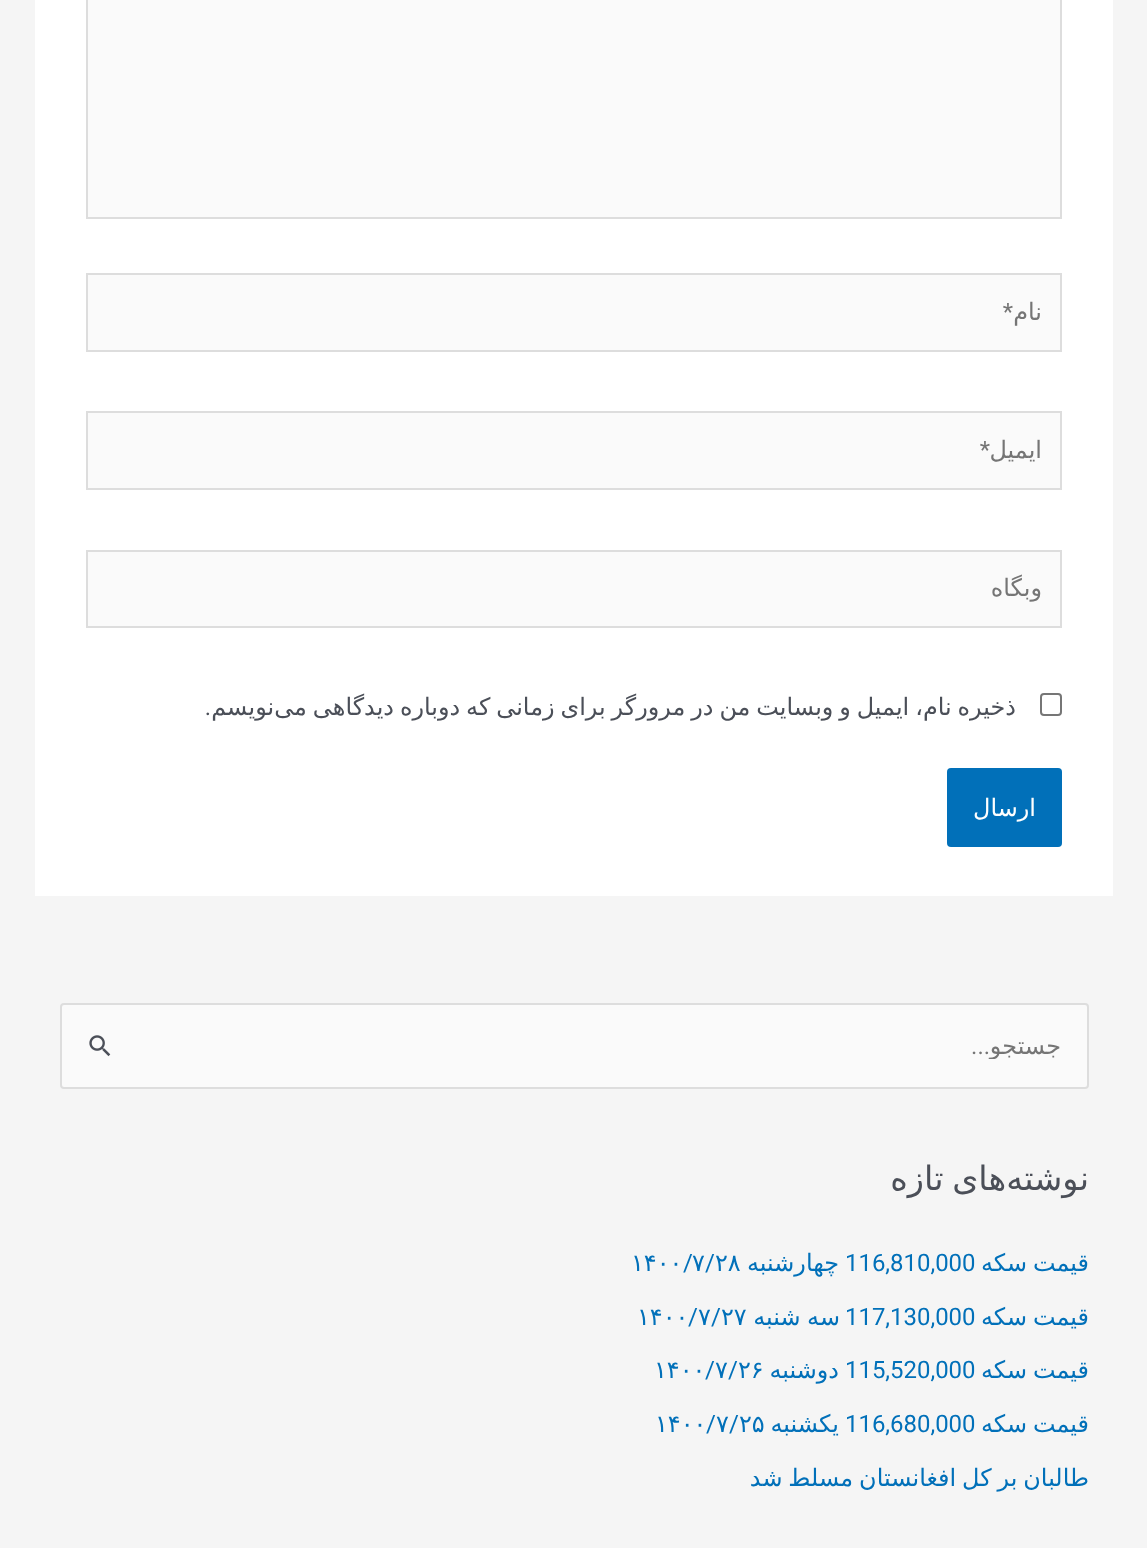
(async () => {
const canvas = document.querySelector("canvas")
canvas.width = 1147
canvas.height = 1548
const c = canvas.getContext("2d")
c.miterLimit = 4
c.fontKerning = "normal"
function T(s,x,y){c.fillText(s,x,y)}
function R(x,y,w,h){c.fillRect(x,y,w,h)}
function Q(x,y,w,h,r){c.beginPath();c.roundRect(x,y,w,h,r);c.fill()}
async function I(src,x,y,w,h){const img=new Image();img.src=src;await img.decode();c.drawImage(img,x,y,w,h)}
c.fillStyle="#f5f5f5"
R(0,0,1147,1548)
c.fillStyle="#fff"
R(35,0,1078,896)
c.fillStyle="#fafafa"
c.beginPath()
c.rect(87,-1,974,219)
c.fill()
c.strokeStyle="#ddd"
c.lineWidth=2
c.stroke()
c.beginPath()
c.rect(87,274,974,77)
c.fill()
c.stroke()
c.direction="rtl"
c.font="23.95px DejaVu Sans"
c.fillStyle="#757575"
T("نام",1042,320)
c.font="23.95px Roboto"
T("*",1013,320)
c.fillStyle="#fafafa"
c.beginPath()
c.rect(87,412,974,77)
c.fill()
c.stroke()
c.font="23.95px DejaVu Sans"
c.fillStyle="#757575"
T("ایمیل",1042,458)
c.font="23.95px Roboto"
T("*",990,458)
c.fillStyle="#fafafa"
c.beginPath()
c.rect(87,551,974,76)
c.fill()
c.stroke()
c.font="23.95px DejaVu Sans"
c.fillStyle="#757575"
T("وبگاه",1042,596)
c.beginPath()
c.roundRect(1041,694,20,21,3)
c.strokeStyle="#767676"
c.stroke()
c.wordSpacing="-1.7px"
c.fillStyle="#4b4f58"
T("ذخیره نام، ایمیل و وبسایت من در مرورگر برای زمانی که دوباره دیدگاهی می‌نویسم",1016,715)
c.wordSpacing="0px"
c.font="23.95px Roboto"
T(".",211,715)
c.fillStyle="#0170b9"
Q(947,768,115,79,4)
c.font="23.95px DejaVu Sans"
c.fillStyle="#fff"
T("ارسال",1036,816)
c.fillStyle="#fafafa"
c.beginPath()
c.roundRect(61,1004,1027,84,3)
c.fill()
c.strokeStyle="#ddd"
c.stroke()
c.save()
c.beginPath()
c.rect(147,1031,914,28)
c.clip()
c.fillStyle="#757575"
T("جستجو",1061,1054)
c.restore()
c.font="23.95px Roboto"
c.fillStyle="#757575"
T("...",990,1054)
await I("1.png",89,1035,22,22)
c.wordSpacing="-2px"
c.font="33.5px DejaVu Sans"
c.fillStyle="#4b4f58"
T("نوشته‌های تازه",1089,1190)
c.wordSpacing="-1.7px"
c.font="23.95px DejaVu Sans"
c.fillStyle="#0170b9"
T("قیمت سکه",1089,1271)
c.wordSpacing="0px"
c.direction="ltr"
c.font="23.95px Roboto"
T("116,810,000",845,1271)
c.direction="rtl"
c.font="23.95px DejaVu Sans"
T("چهارشنبه",839,1271)
c.direction="ltr"
T("۲۸",715,1271)
c.font="23.95px Roboto"
T("/",705,1271)
c.font="23.95px DejaVu Sans"
T("۷",692,1271)
c.font="23.95px Roboto"
T("/",683,1271)
c.font="23.95px DejaVu Sans"
T("۱۴۰۰",631,1271)
c.wordSpacing="-1.7px"
c.direction="rtl"
T("قیمت سکه",1089,1325)
c.wordSpacing="0px"
c.direction="ltr"
c.font="23.95px Roboto"
T("117,130,000",845,1325)
c.wordSpacing="-1px"
c.direction="rtl"
c.font="23.95px DejaVu Sans"
T("سه شنبه",840,1325)
c.wordSpacing="0px"
c.direction="ltr"
T("۲۷",721,1325)
c.font="23.95px Roboto"
T("/",711,1325)
c.font="23.95px DejaVu Sans"
T("۷",698,1325)
c.font="23.95px Roboto"
T("/",688,1325)
c.font="23.95px DejaVu Sans"
T("۱۴۰۰",637,1325)
c.wordSpacing="-1.7px"
c.direction="rtl"
T("قیمت سکه",1089,1378)
c.wordSpacing="0px"
c.direction="ltr"
c.font="23.95px Roboto"
T("115,520,000",845,1378)
c.direction="rtl"
c.font="23.95px DejaVu Sans"
T("دوشنبه",839,1378)
c.direction="ltr"
T("۲۶",738,1378)
c.font="23.95px Roboto"
T("/",728,1378)
c.font="23.95px DejaVu Sans"
T("۷",715,1378)
c.font="23.95px Roboto"
T("/",705,1378)
c.font="23.95px DejaVu Sans"
T("۱۴۰۰",654,1378)
c.wordSpacing="-1.7px"
c.direction="rtl"
T("قیمت سکه",1089,1432)
c.wordSpacing="0px"
c.direction="ltr"
c.font="23.95px Roboto"
T("116,680,000",845,1432)
c.direction="rtl"
c.font="23.95px DejaVu Sans"
T("یکشنبه",839,1432)
c.direction="ltr"
T("۲۵",739,1432)
c.font="23.95px Roboto"
T("/",729,1432)
c.font="23.95px DejaVu Sans"
T("۷",716,1432)
c.font="23.95px Roboto"
T("/",706,1432)
c.font="23.95px DejaVu Sans"
T("۱۴۰۰",655,1432)
c.wordSpacing="-1.7px"
c.direction="rtl"
T("طالبان بر كل افغانستان مسلط شد",1089,1486)
})()
